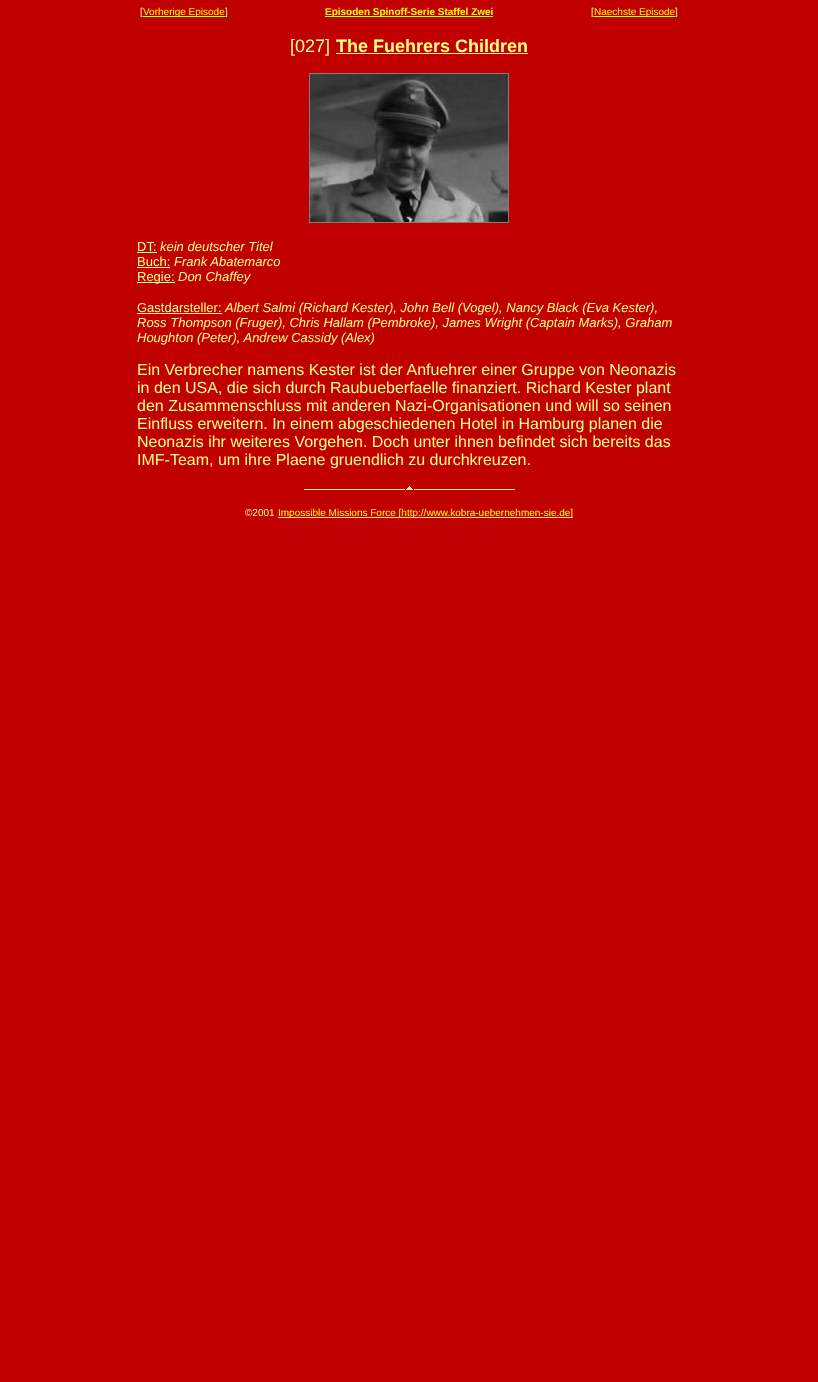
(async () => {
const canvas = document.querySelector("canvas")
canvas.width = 818
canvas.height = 1382
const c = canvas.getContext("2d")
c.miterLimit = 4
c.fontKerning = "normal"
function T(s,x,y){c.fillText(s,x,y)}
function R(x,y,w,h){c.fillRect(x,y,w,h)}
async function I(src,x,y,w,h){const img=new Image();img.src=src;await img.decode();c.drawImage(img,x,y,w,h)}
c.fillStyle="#c00000"
R(0,0,818,1382)
c.font="10px Liberation Sans"
c.fillStyle="#ffff80"
T("[",140,15)
c.fillStyle="#ff0"
R(143,16,82,1)
T("Vorherige Episode",143,15)
c.fillStyle="#ffff80"
T("]",225,15)
c.fillStyle="#ff0"
R(325,16,168,1)
c.font="bold 10px Liberation Sans"
T("Episoden Spinoff-Serie Staffel Zwei",325,15)
c.font="10px Liberation Sans"
c.fillStyle="#ffff80"
T("[",591,15)
c.fillStyle="#ff0"
R(594,16,81,1)
T("Naechste Episode",594,15)
c.fillStyle="#ffff80"
T("]",675,15)
c.font="18px Liberation Sans"
T("[027]",290,52)
c.font="bold 18px Liberation Sans"
T("The Fuehrers Children",336,52)
R(336,53,192,1)
await I("1.png",309,73,200,150)
c.font="13px Liberation Sans"
T("DT:",137,251)
R(137,252,20,1)
c.font="italic 13px Liberation Sans"
T("kein deutscher Titel",160,251)
c.font="13px Liberation Sans"
T("Buch:",137,266)
R(137,267,33,1)
c.font="italic 13px Liberation Sans"
T("Frank Abatemarco",174,266)
R(137,282,38,1)
c.font="13px Liberation Sans"
T("Regie:",137,281)
c.font="italic 13px Liberation Sans"
T("Don Chaffey",178,281)
c.font="13px Liberation Sans"
T("Gastdarsteller:",137,312)
R(137,313,85,1)
c.font="italic 13px Liberation Sans"
T("Albert Salmi (Richard Kester), John Bell (Vogel), Nancy Black (Eva Kester),",225,312)
T("Ross Thompson (Fruger), Chris Hallam (Pembroke), James Wright (Captain Marks), Graham",137,327)
T("Houghton (Peter), Andrew Cassidy (Alex)",137,342)
c.font="16px Liberation Sans"
T("Ein Verbrecher namens Kester ist der Anfuehrer einer Gruppe von Neonazis",137,375)
T("in den USA, die sich durch Raubueberfaelle finanziert. Richard Kester plant",137,393)
T("den Zusammenschluss mit anderen Nazi-Organisationen und will so seinen",137,411)
T("Einfluss erweitern. In einem abgeschiedenen Hotel in Hamburg planen die",137,429)
T("Neonazis ihr weiteres Vorgehen. Doch unter ihnen befindet sich bereits das",137,447)
T("IMF-Team, um ihre Plaene gruendlich zu durchkreuzen.",137,465)
await I("2.png",304,486,211,4)
c.font="10px Liberation Sans"
T("©2001",245,516)
c.fillStyle="#ff0"
R(278,517,295,1)
T("Impossible Missions Force [http://www.kobra-uebernehmen-sie.de]",278,516)
})()
